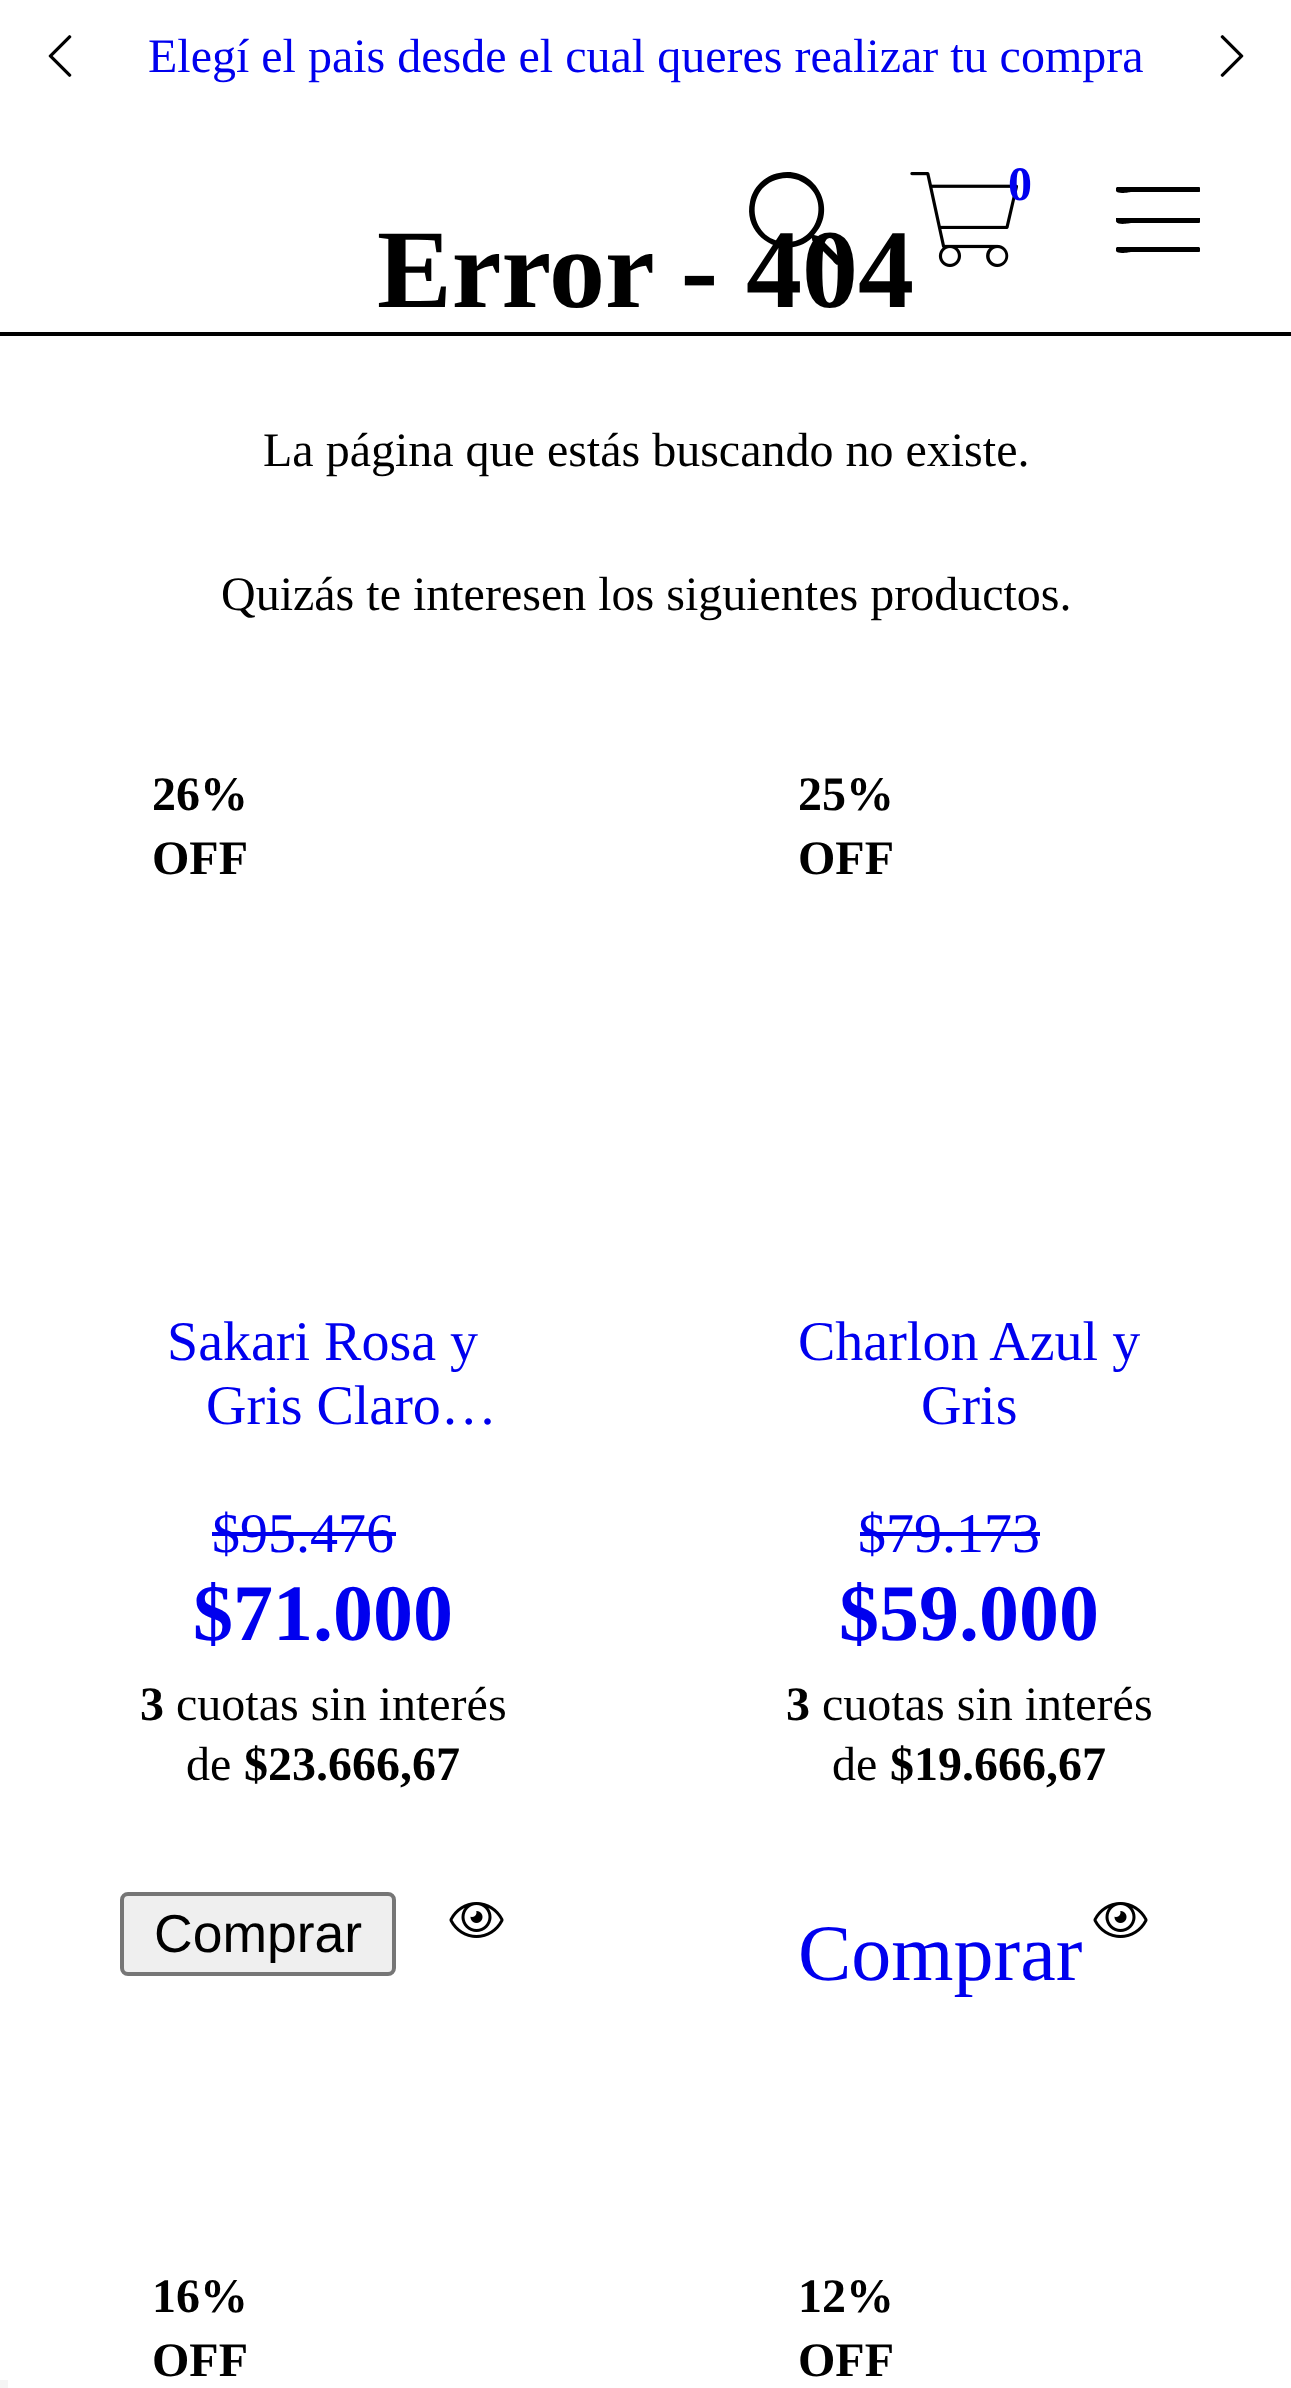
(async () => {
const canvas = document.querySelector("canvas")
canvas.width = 1291
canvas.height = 2388
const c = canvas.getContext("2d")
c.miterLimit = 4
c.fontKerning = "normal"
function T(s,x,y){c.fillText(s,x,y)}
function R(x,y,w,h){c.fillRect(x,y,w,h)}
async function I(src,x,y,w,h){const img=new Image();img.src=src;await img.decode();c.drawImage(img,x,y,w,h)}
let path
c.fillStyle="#fff"
R(0,0,1291,2388)
await I("1.png",48,35,24,42)
c.font="48px Liberation Serif"
c.fillStyle="#00e"
T("Elegí el pais desde el cual queres realizar tu compra",148,72)
await I("2.png",1220,35,24,42)
c.fillStyle="#000"
path = new Path2D("M841 259l-23-23l-4-1c25-26 1-70-35-62c-7 1-14 5-19 10c-5 5-9 12-10 19c-8 36 36 60 62 36c0 4 1 3 5 7l15 15c1 1 5 7 7 4l3-2c0-1 0-2-1-3zm-54-17c-41 0-45-62 0-64c5 0 10 1 15 4c29 15 17 60-15 60z")
c.fill(path)
c.font="bold 112px Liberation Serif"
T("Error - 404",377,307)
await I("3.png",910,172,108,96)
c.font="bold 48px Liberation Serif"
c.fillStyle="#00e"
T("0",1008,200)
c.save()
c.beginPath()
c.rect(1116,172,84,96)
c.clip()
c.fillStyle="#000"
path = new Path2D("M1199 192h-68c-1 0-18 4-15-4l1-1h82c2 0 2 5 0 5zm0 31h-68c-1 0-18 4-15-5h1h14h68h1c0 1 1 5-1 5zm0 29h-68c-1 0-18 4-15-4l1-1h14h68l1 1c0 1 1 4-1 4z")
c.fill(path)
c.restore()
c.fillStyle="#000"
R(0,332,1291,4)
c.font="48px Liberation Serif"
T("La página que estás buscando no existe.",263,466)
T("Quizás te interesen los siguientes productos.",221,610)
c.font="bold 48px Liberation Serif"
T("26%",152,810)
T("OFF",152,874)
c.font="56px Liberation Serif"
c.fillStyle="#00e"
T("Sakari Rosa y",167,1360)
T("Gris Claro…",206,1424)
T("$95.476",212,1552)
R(212,1532,184,4)
c.font="bold 80px Liberation Serif"
T("$71.000",193,1640)
c.font="bold 48px Liberation Serif"
c.fillStyle="#000"
T("3",140,1720)
c.font="48px Liberation Serif"
T("cuotas sin interés",176,1720)
T("de",186,1780)
c.font="bold 48px Liberation Serif"
T("$23.666,67",244,1780)
c.fillStyle="#efefef"
c.beginPath()
c.roundRect(122,1894,272,80,6)
c.fill()
c.strokeStyle="#767676"
c.lineWidth=4
c.stroke()
c.font="53.5px Liberation Sans"
c.fillStyle="#000"
T("Comprar",154,1952)
await I("4.png",449,1902,55,36)
c.font="bold 48px Liberation Serif"
T("25%",798,810)
T("OFF",798,874)
c.font="56px Liberation Serif"
c.fillStyle="#00e"
T("Charlon Azul y",798,1360)
T("Gris",921,1424)
T("$79.173",858,1552)
R(860,1532,180,4)
c.font="bold 80px Liberation Serif"
T("$59.000",839,1640)
c.font="bold 48px Liberation Serif"
c.fillStyle="#000"
T("3",786,1720)
c.font="48px Liberation Serif"
T("cuotas sin interés",822,1720)
T("de",832,1780)
c.font="bold 48px Liberation Serif"
T("$19.666,67",890,1780)
await I("4.png",1093,1902,55,36)
c.font="80px Liberation Serif"
c.fillStyle="#00e"
T("Comprar",798,1980)
c.font="bold 48px Liberation Serif"
c.fillStyle="#000"
T("16%",152,2312)
T("OFF",152,2376)
T("12%",798,2312)
T("OFF",798,2376)
c.fillStyle="#f5f5f5"
R(0,2380,8,8)
})()
